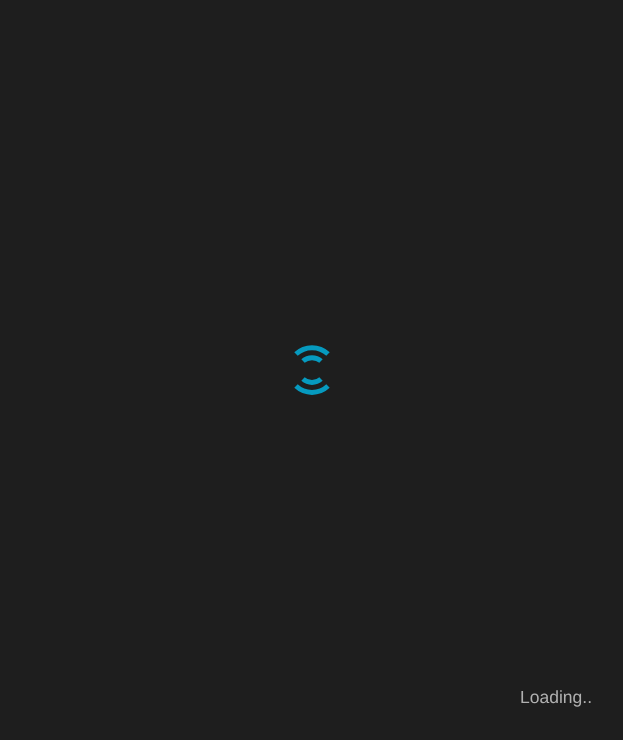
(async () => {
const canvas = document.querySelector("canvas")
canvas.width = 623
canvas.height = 740
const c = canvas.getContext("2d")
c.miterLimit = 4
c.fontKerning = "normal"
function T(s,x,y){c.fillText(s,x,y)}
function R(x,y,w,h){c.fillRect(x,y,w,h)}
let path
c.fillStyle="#1e1e1e"
R(0,0,623,740)
path = new Path2D("M296 354c9-8.5 23-8.5 32 0m0 32c-9 8.5-23 8.5-32 0m7-25c5-4.5 13-4.5 18 0m0 18c-5 4.5-13 4.5-18 0")
c.strokeStyle="#069abf"
c.lineWidth=5
c.stroke(path)
c.font="17.5px Liberation Sans"
c.fillStyle="#b0b0b0"
T("Loading..",520,703)
})()
